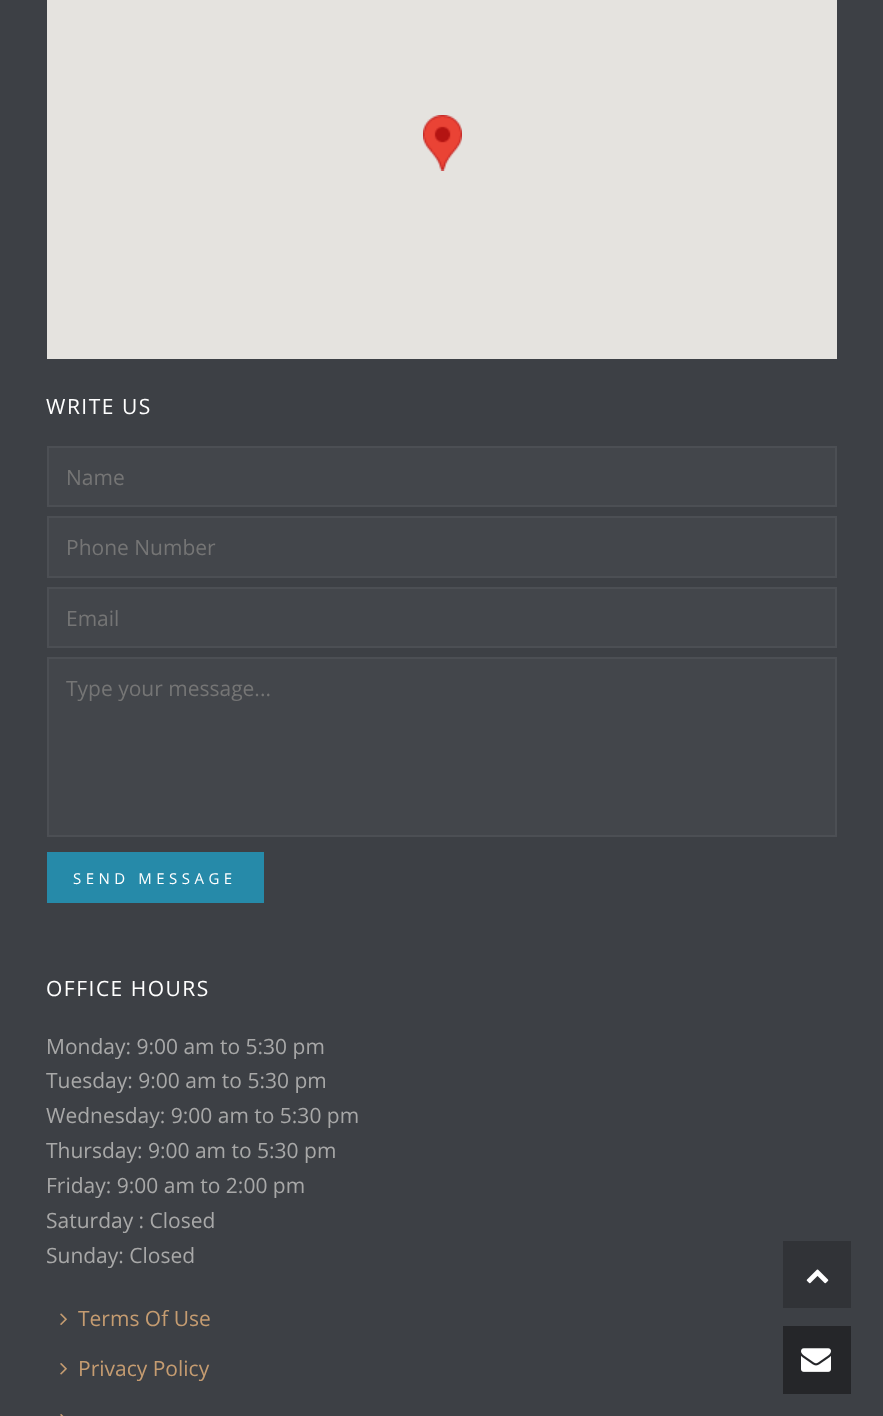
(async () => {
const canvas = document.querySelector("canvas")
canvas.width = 883
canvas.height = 1416
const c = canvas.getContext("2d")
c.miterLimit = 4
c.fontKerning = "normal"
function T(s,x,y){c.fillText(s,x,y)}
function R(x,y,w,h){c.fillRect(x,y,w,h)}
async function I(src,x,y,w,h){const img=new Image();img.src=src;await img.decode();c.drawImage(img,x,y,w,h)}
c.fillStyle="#3d4045"
R(0,0,883,1416)
c.fillStyle="#e5e3df"
R(47,0,790,359)
await I("1.png",423,115,39,56)
c.letterSpacing="1.5px"
c.font="21px Open Sans"
c.fillStyle="#fff"
T("WRITE US",46,414)
c.fillStyle="#43464b"
c.beginPath()
c.rect(48,447,788,59)
c.fill()
c.strokeStyle="#4c4f54"
c.lineWidth=2
c.stroke()
c.letterSpacing="0px"
c.fillStyle="#757575"
T("Name",66,485)
c.fillStyle="#43464b"
c.beginPath()
c.rect(48,517,788,60)
c.fill()
c.stroke()
c.fillStyle="#757575"
T("Phone Number",66,555)
c.fillStyle="#43464b"
c.beginPath()
c.rect(48,588,788,59)
c.fill()
c.stroke()
c.fillStyle="#757575"
T("Email",66,626)
c.fillStyle="#43464b"
c.beginPath()
c.rect(48,658,788,178)
c.fill()
c.stroke()
c.fillStyle="#757575"
T("Type your message...",66,696)
c.fillStyle="#268aa9"
R(47,852,217,51)
c.letterSpacing="4.5px"
c.font="15px Open Sans"
c.fillStyle="#fff"
T("SEND MESSAGE",73,884)
c.letterSpacing="1.5px"
c.font="21px Open Sans"
T("OFFICE HOURS",46,996)
c.letterSpacing="0px"
c.fillStyle="#a8a8a8"
T("Monday: 9:00 am to 5:30 pm",46,1054)
T("Tuesday: 9:00 am to 5:30 pm",46,1088)
T("Wednesday: 9:00 am to 5:30 pm",46,1123)
T("Thursday: 9:00 am to 5:30 pm",46,1158)
T("Friday: 9:00 am to 2:00 pm",46,1193)
T("Saturday : Closed",46,1228)
T("Sunday: Closed",46,1263)
await I("2.png",60,1313,7,12)
c.fillStyle="#c59c71"
T("Terms Of Use",78,1326)
await I("3.png",60,1363,7,12)
T("Privacy Policy",78,1376)
await I("4.png",60,1414,4,2)
c.fillStyle="#313337"
R(783,1241,68,67)
await I("5.png",806,1269,23,15)
c.fillStyle="#252629"
R(783,1326,68,68)
await I("6.png",801,1348,30,24)
})()
